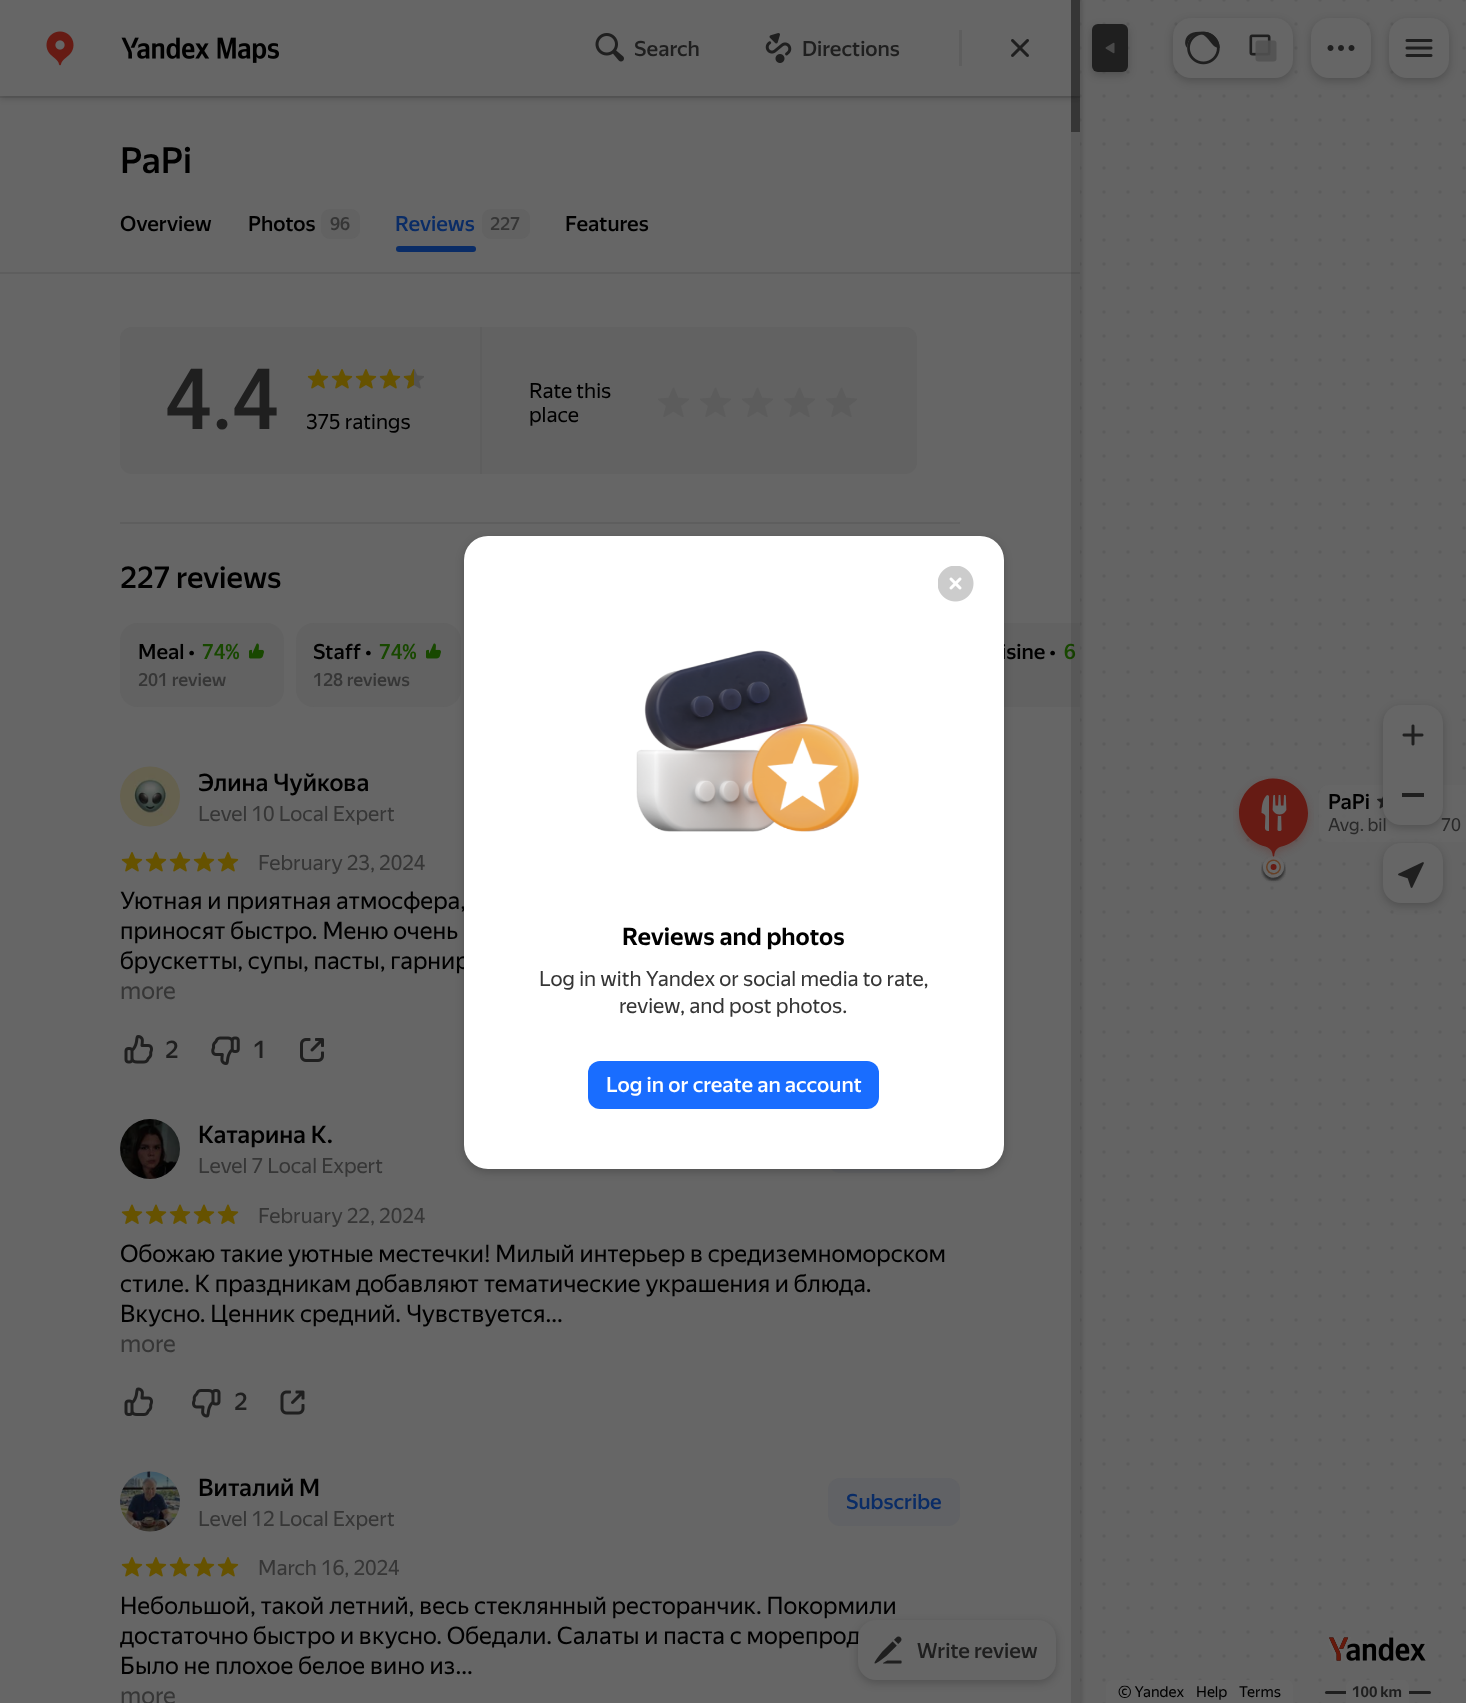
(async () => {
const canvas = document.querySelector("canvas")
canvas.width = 1466
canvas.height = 1703
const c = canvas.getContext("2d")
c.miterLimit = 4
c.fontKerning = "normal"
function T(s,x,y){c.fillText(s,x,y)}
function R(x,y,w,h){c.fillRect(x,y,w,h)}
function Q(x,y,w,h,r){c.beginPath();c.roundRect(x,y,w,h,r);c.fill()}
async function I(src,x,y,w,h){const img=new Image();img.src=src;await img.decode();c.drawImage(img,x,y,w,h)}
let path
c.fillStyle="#fff"
R(0,0,1466,1703)
await I("1.png",1080,0,386,1703)
c.fillStyle="#0000001a"
c.filter="blur(1.5px)"
c.beginPath()
c.rect(3,0,1080,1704)
c.fill()
c.filter="none"
c.fillStyle="#666"
R(0,98,1080,1605)
c.fillStyle="#5e5e5e"
R(0,96,1080,2)
c.save()
c.beginPath()
c.rect(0,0,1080,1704)
c.clip()
c.fillStyle="#00000033"
c.filter="blur(3px)"
c.beginPath()
c.rect(0,92,1080,6)
c.fill()
c.filter="none"
c.restore()
c.fillStyle="#00000033"
c.filter="blur(4.5px)"
c.beginPath()
c.roundRect(1092,27,36,48,6)
c.fill()
c.filter="none"
c.fillStyle="#666"
R(0,0,1080,96)
await I("2.png",46,31,28,35)
await I("3.png",121,37,158,26)
await I("4.png",595,33,29,29)
c.font="500 21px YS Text"
c.fillStyle="#1f1f1f"
T("Search",634,56)
await I("5.png",765,33,27,30)
T("Directions",802,56)
c.fillStyle="#5e5e5e"
R(959,30,3,36)
await I("6.png",1011,39,18,18)
c.font="500 36px YS Text"
c.fillStyle="#000"
T("PaPi",120,173)
c.font="500 21px YS Text"
T("Overview",120,231)
T("Photos",248,231)
c.fillStyle="#626262"
Q(321,209,39,30,9)
c.font="500 18px YS Text"
c.fillStyle="#363636"
T("96",330,230)
c.font="500 21px YS Text"
c.fillStyle="#0a2c66"
T("Reviews",395,231)
c.fillStyle="#626262"
Q(482,209,48,30,9)
c.font="500 18px YS Text"
c.fillStyle="#363636"
T("227",490,230)
c.font="500 21px YS Text"
c.fillStyle="#000"
T("Features",565,231)
c.fillStyle="#0a2c66"
Q(396,246,80,6,3)
c.fillStyle="#5e5e5e"
R(0,272,1080,2)
c.fillStyle="#626262"
c.beginPath()
c.roundRect(120,327,360,147,[12,0,0,12])
c.fill()
c.font="500 84px YS Text"
c.fillStyle="#1f1f1f"
T("4",165,429)
c.font="84px YS Text"
T(".",212,429)
c.font="500 84px YS Text"
T("4",232,429)
await I("7.png",307,369,22,20)
await I("7.png",331,369,22,20)
await I("7.png",355,369,22,20)
await I("7.png",379,369,22,20)
await I("8.png",403,369,21,20)
c.font="21px YS Text"
c.fillStyle="#000"
T("375 ratings",306,429)
c.fillStyle="#626262"
c.beginPath()
c.roundRect(480,327,437,147,[0,12,12,0])
c.fill()
c.fillStyle="#5e5e5e"
R(480,327,2,147)
c.fillStyle="#000"
T("Rate this",529,398)
T("place",529,422)
await I("9.png",658,387,31,30)
await I("9.png",700,387,31,30)
await I("9.png",742,387,31,30)
await I("9.png",784,387,31,30)
await I("9.png",826,387,31,30)
c.fillStyle="#5e5e5e"
R(120,522,840,2)
c.font="500 30px YS Text"
c.fillStyle="#000"
T("227 reviews",120,588)
c.fillStyle="#626262"
Q(120,623,164,84,18)
c.font="500 21px YS Text"
c.fillStyle="#000"
T("Meal •",138,659)
c.fillStyle="#184800"
T("74%",202,659)
await I("10.png",249,643,15,16)
c.font="500 18px YS Text"
c.fillStyle="#363636"
T("201 review",138,686)
c.fillStyle="#626262"
Q(296,623,165,84,18)
c.font="500 21px YS Text"
c.fillStyle="#000"
T("Staff •",313,659)
c.fillStyle="#184800"
T("74%",379,659)
await I("10.png",426,643,15,16)
c.font="500 18px YS Text"
c.fillStyle="#363636"
T("128 reviews",313,686)
c.fillStyle="#626262"
R(1004,623,76,84)
c.font="500 21px YS Text"
c.fillStyle="#000"
T("isine •",1001,659)
c.fillStyle="#184800"
T("6",1064,659)
await I("11.png",120,766,60,61)
c.font="500 24px YS Text"
c.fillStyle="#000"
T("Элина Чуйкова",198,791)
c.font="21px YS Text"
c.fillStyle="#363636"
T("Level 10 Local Expert",198,821)
await I("12.png",121,852,22,20)
await I("12.png",145,852,22,20)
await I("12.png",169,852,22,20)
await I("12.png",193,852,22,20)
await I("12.png",217,852,22,20)
T("February 23, 2024",258,870)
c.font="24px YS Text"
c.fillStyle="#000"
T("Уютная и приятная атмосфера,",120,909)
T("приносят быстро. Меню очень",120,939)
T("брускетты, супы, пасты, гарнир",120,969)
c.fillStyle="#363636"
T("more",120,999)
await I("13.png",124,1035,29,29)
c.font="500 24px YS Text"
c.fillStyle="#1f1f1f"
T("2",165,1058)
await I("14.png",211,1036,29,29)
T("1",253,1058)
await I("15.png",300,1038,24,24)
await I("16.png",120,1119,60,60)
c.fillStyle="#000"
T("Катарина К.",198,1143)
c.font="21px YS Text"
c.fillStyle="#363636"
T("Level 7 Local Expert",198,1173)
c.fillStyle="#616265"
Q(828,1125,132,48,12)
await I("17.png",121,1204,22,20)
await I("17.png",145,1204,22,20)
await I("17.png",169,1204,22,20)
await I("17.png",193,1204,22,20)
await I("17.png",217,1204,22,20)
c.fillStyle="#363636"
T("February 22, 2024",258,1223)
c.font="24px YS Text"
c.fillStyle="#000"
T("Обожаю такие уютные местечки! Милый интерьер в средиземноморском",120,1262)
T("стиле. К праздникам добавляют тематические украшения и блюда.",120,1292)
T("Вкусно. Ценник средний. Чувствуется…",120,1322)
c.fillStyle="#363636"
T("more",120,1352)
await I("18.png",124,1387,29,29)
await I("19.png",192,1389,29,29)
c.font="500 24px YS Text"
c.fillStyle="#1f1f1f"
T("2",234,1410)
await I("20.png",280,1390,25,25)
await I("21.png",120,1471,60,61)
c.fillStyle="#000"
T("Виталий М",198,1496)
c.font="21px YS Text"
c.fillStyle="#363636"
T("Level 12 Local Expert",198,1526)
c.fillStyle="#616265"
Q(828,1478,132,48,12)
c.font="500 21px YS Text"
c.fillStyle="#0a2c66"
T("Subscribe",846,1509)
await I("12.png",121,1557,22,20)
await I("12.png",145,1557,22,20)
await I("12.png",169,1557,22,20)
await I("12.png",193,1557,22,20)
await I("12.png",217,1557,22,20)
c.font="21px YS Text"
c.fillStyle="#363636"
T("March 16, 2024",258,1575)
c.font="24px YS Text"
c.fillStyle="#000"
T("Небольшой, такой летний, весь стеклянный ресторанчик. Покормили",120,1614)
T("достаточно быстро и вкусно. Обедали. Салаты и паста с морепрод",120,1644)
T("Было не плохое белое вино из…",120,1674)
c.fillStyle="#363636"
T("more",120,1704)
c.fillStyle="#00000033"
c.filter="blur(4.5px)"
c.beginPath()
c.roundRect(858,1623,198,60,18)
c.fill()
c.filter="none"
c.fillStyle="#666"
Q(858,1620,198,60,18)
await I("22.png",874,1636,28,28)
c.font="500 21px YS Text"
c.fillStyle="#1f1f1f"
T("Write review",917,1658)
c.fillStyle="#0000001a"
R(1071,0,9,1703)
c.fillStyle="#00000066"
R(1071,0,9,132)
c.fillStyle="#1f1f1f"
Q(1092,24,36,48,6)
await I("23.png",1105,42,10,12)
c.fillStyle="#00000033"
c.filter="blur(4.5px)"
c.beginPath()
c.roundRect(1173,21,120,60,18)
c.fill()
c.filter="none"
c.fillStyle="#666"
c.beginPath()
c.roundRect(1173,18,60,60,[18,0,0,18])
c.fill()
await I("24.png",1185,31,35,34)
c.beginPath()
c.roundRect(1233,18,60,60,[0,18,18,0])
c.fill()
await I("25.png",1249,34,28,28)
c.fillStyle="#00000033"
c.filter="blur(4.5px)"
c.beginPath()
c.roundRect(1311,21,60,60,18)
c.fill()
c.filter="none"
c.fillStyle="#666"
Q(1311,18,60,60,18)
await I("26.png",1327,45,28,6)
c.fillStyle="#00000033"
c.filter="blur(4.5px)"
c.beginPath()
c.roundRect(1389,21,60,60,18)
c.fill()
c.filter="none"
c.fillStyle="#666"
Q(1389,18,60,60,18)
await I("27.png",1405,39,28,18)
c.fillStyle="#666666e6"
path = new Path2D("M1328 785h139v57h-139c-5 0-9-4-9-9v-39c0-5 4-9 9-9z")
c.fill(path)
await I("33.png",1377,796,6,13)
c.fillStyle="#00000033"
c.filter="blur(4.5px)"
c.beginPath()
c.roundRect(1383,708,60,120,18)
c.fill()
c.filter="none"
c.fillStyle="#666"
c.beginPath()
c.roundRect(1383,705,60,60,[18,18,0,0])
c.fill()
await I("28.png",1402,724,22,22)
c.font="18px YS Text"
c.fillStyle="#292929"
T("Avg. bil",1328,831)
T("70",1441,831)
c.fillStyle="#666"
c.beginPath()
c.roundRect(1383,765,60,60,[0,0,18,18])
c.fill()
c.fillStyle="#1f1f1f"
R(1402,793,22,4)
c.fillStyle="#00000033"
c.filter="blur(4.5px)"
c.beginPath()
c.roundRect(1383,846,60,60,18)
c.fill()
c.filter="none"
c.fillStyle="#666"
Q(1383,843,60,60,18)
await I("29.png",1398,862,26,26)
await I("30.png",1329,1637,97,24)
path = new Path2D("M1112 1680h175c3.5 0 6 2.5 6 6v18h-187v-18c0-3.5 2.5-6 6-6z")
c.fill(path)
c.font="15px YS Text"
c.fillStyle="#000"
T("© Yandex",1118,1697)
T("Help",1196,1697)
T("Terms",1239,1697)
c.fillStyle="#1f1f1f"
Q(1325,1691,106,3,1.5)
c.fillStyle="#666"
path = new Path2D("M1352 1680h51c3.5 0 6 2.5 6 6v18h-63v-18c0-3.5 2.5-6 6-6z")
c.fill(path)
c.font="bold 15px YS Text"
c.fillStyle="#1f1f1f"
T("100 km",1352,1697)
await I("35.png",1261,862,25,21)
await I("34.png",1261,857,25,24)
await I("36.png",1261,862,25,19)
await I("37.png",1261,862,25,19)
await I("38.png",1261,862,25,19)
await I("31.png",1233,776,81,97)
await I("32.png",1261,795,26,36)
c.font="500 21px YS Text"
c.fillStyle="#000"
T("PaPi",1328,809)
c.fillStyle="#00000033"
c.filter="blur(4.5px)"
c.beginPath()
c.roundRect(464,539,540,633,24)
c.fill()
c.filter="none"
c.fillStyle="#fff"
Q(464,536,540,633,24)
await I("39.png",938,566,36,36)
await I("40.png",636,650,223,182)
c.font="bold 24px YS Text"
c.fillStyle="#000"
T("Reviews and photos",622,945)
c.font="21px YS Text"
c.fillStyle="#363636"
T("Log in with Yandex or social media to rate,",539,986)
T("review, and post photos.",619,1013)
c.fillStyle="#196dff"
Q(588,1061,291,48,12)
c.font="500 21px YS Text"
c.fillStyle="#fff"
T("Log in or create an account",606,1092)
})()
